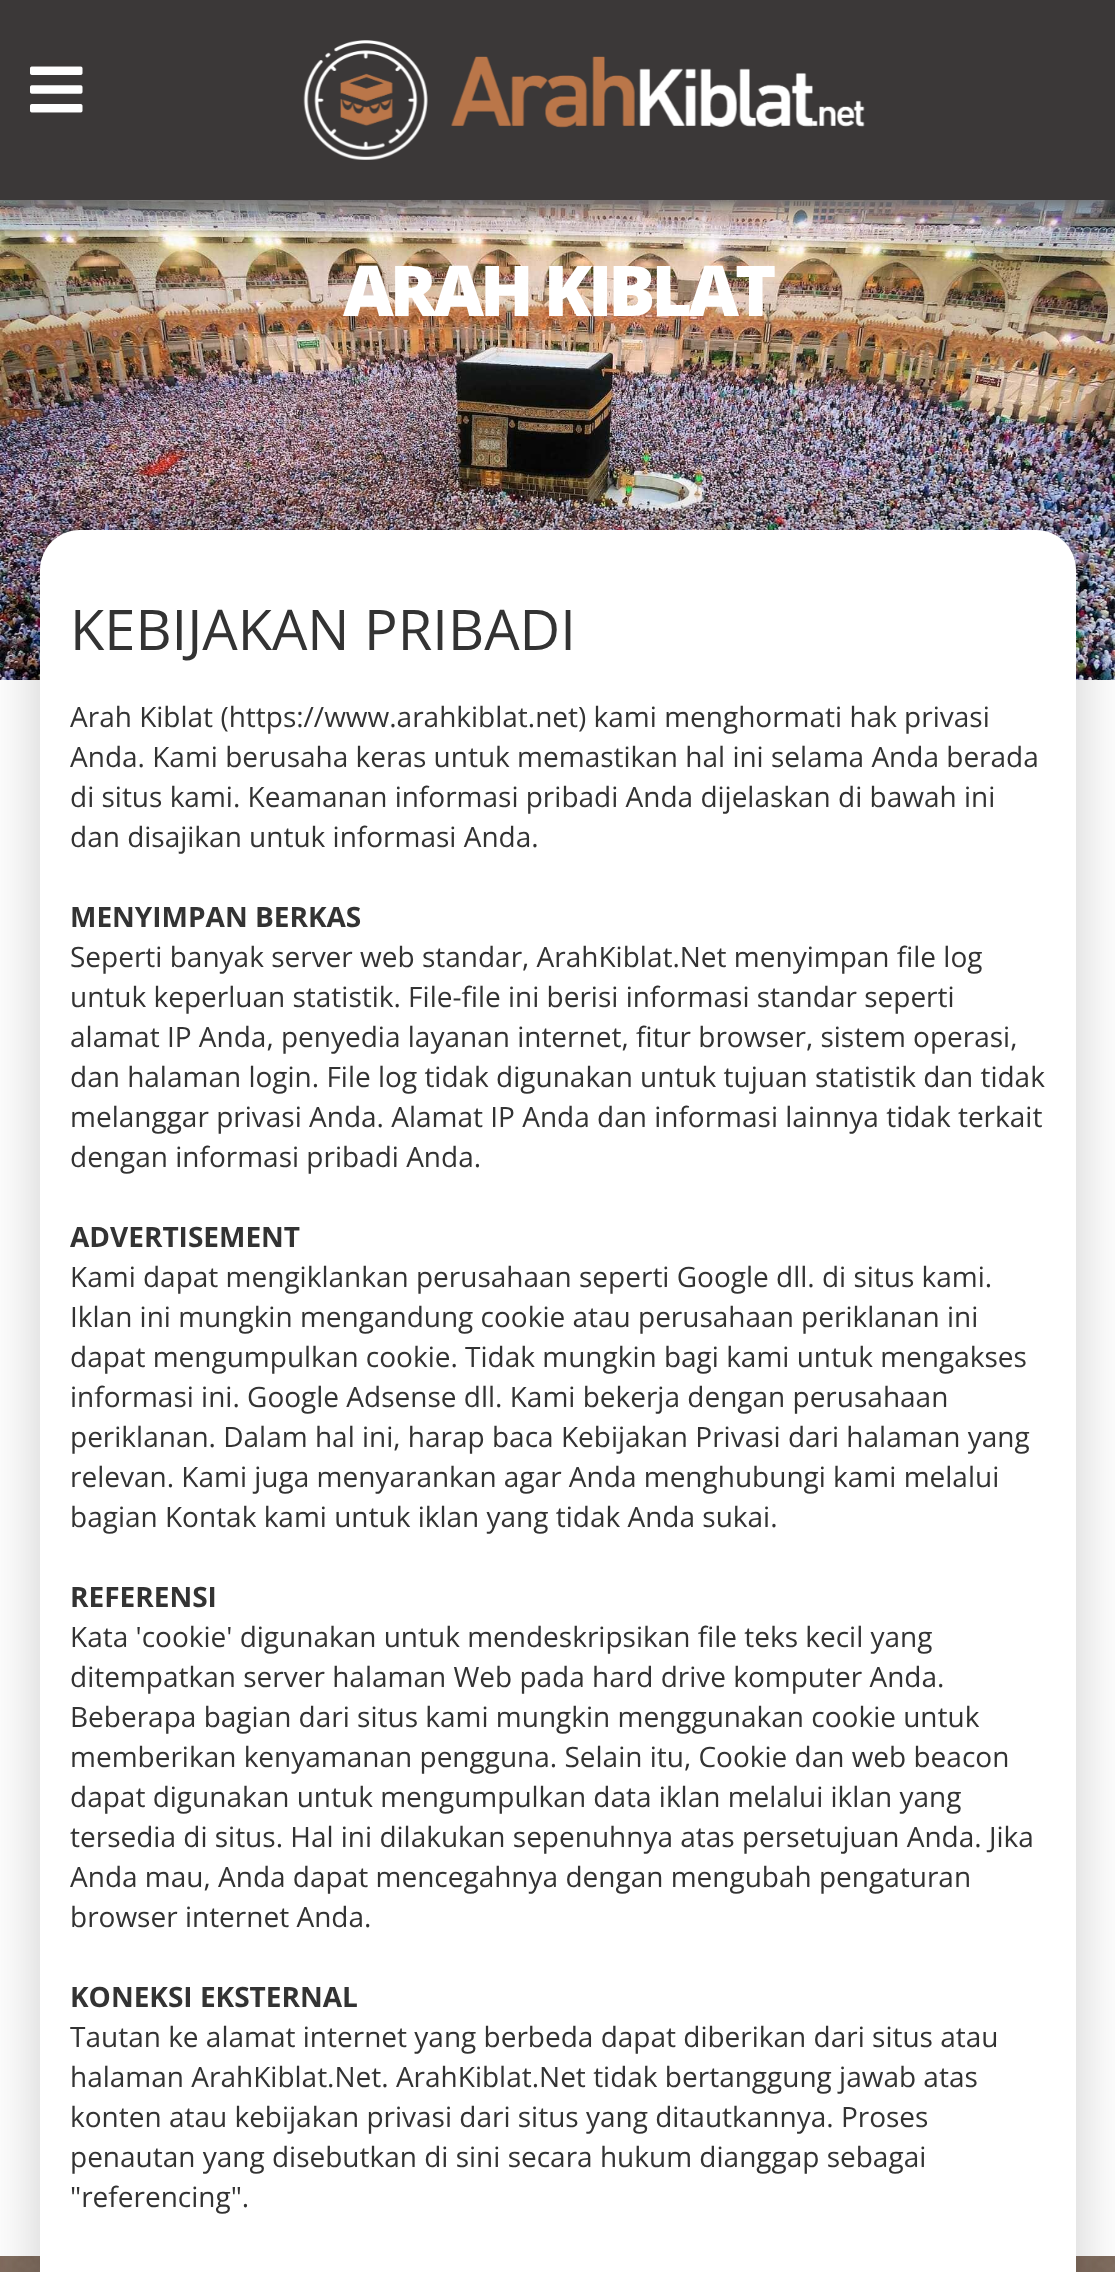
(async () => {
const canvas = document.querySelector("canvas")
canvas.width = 1115
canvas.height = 2272
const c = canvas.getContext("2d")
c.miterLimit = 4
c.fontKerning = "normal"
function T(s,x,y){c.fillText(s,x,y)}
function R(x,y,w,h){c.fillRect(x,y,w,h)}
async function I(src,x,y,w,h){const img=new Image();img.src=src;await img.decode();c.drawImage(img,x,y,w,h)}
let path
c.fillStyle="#fff"
R(0,0,1115,2272)
await I("3.png",0,200,1115,480)
c.fillStyle="#6e6e6e"
c.filter="blur(10px)"
c.beginPath()
c.rect(0,10,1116,200)
c.fill()
c.filter="none"
c.fillStyle="#3b3838"
R(0,0,1115,200)
await I("1.png",30,66,53,47)
await I("2.png",303,40,562,120)
c.letterSpacing="-4px"
c.font="800 70px Open Sans"
c.fillStyle="#fff"
T("ARAH KIBLAT",343,316)
await I("4.png",0,2256,1115,16)
c.fillStyle="#00000033"
c.filter="blur(30px)"
c.beginPath()
c.roundRect(40,530,1036,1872,40)
c.fill()
c.filter="none"
c.fillStyle="#fff"
path = new Path2D("M80 530h956c22 0 40 18 40 40v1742h-1036v-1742c0-22 18-40 40-40z")
c.fill(path)
c.letterSpacing="0px"
c.font="56px Open Sans"
c.fillStyle="#333"
T("KEBIJAKAN PRIBADI",70,650)
c.font="28px Open Sans"
T("Arah Kiblat (https://www.arahkiblat.net) kami menghormati hak privasi",70,727)
T("Anda. Kami berusaha keras untuk memastikan hal ini selama Anda berada",70,767)
T("di situs kami. Keamanan informasi pribadi Anda dijelaskan di bawah ini",70,807)
T("dan disajikan untuk informasi Anda.",70,847)
c.font="bold 28px Open Sans"
T("MENYIMPAN BERKAS",70,927)
c.font="28px Open Sans"
T("Seperti banyak server web standar, ArahKiblat.Net menyimpan file log",70,967)
T("untuk keperluan statistik. File-file ini berisi informasi standar seperti",70,1007)
T("alamat IP Anda, penyedia layanan internet, fitur browser, sistem operasi,",70,1047)
T("dan halaman login. File log tidak digunakan untuk tujuan statistik dan tidak",70,1087)
T("melanggar privasi Anda. Alamat IP Anda dan informasi lainnya tidak terkait",70,1127)
T("dengan informasi pribadi Anda.",70,1167)
c.font="bold 28px Open Sans"
T("ADVERTISEMENT",70,1247)
c.font="28px Open Sans"
T("Kami dapat mengiklankan perusahaan seperti Google dll. di situs kami.",70,1287)
T("Iklan ini mungkin mengandung cookie atau perusahaan periklanan ini",70,1327)
T("dapat mengumpulkan cookie. Tidak mungkin bagi kami untuk mengakses",70,1367)
T("informasi ini. Google Adsense dll. Kami bekerja dengan perusahaan",70,1407)
T("periklanan. Dalam hal ini, harap baca Kebijakan Privasi dari halaman yang",70,1447)
T("relevan. Kami juga menyarankan agar Anda menghubungi kami melalui",70,1487)
T("bagian Kontak kami untuk iklan yang tidak Anda sukai.",70,1527)
c.font="bold 28px Open Sans"
T("REFERENSI",70,1607)
c.font="28px Open Sans"
T("Kata 'cookie' digunakan untuk mendeskripsikan file teks kecil yang",70,1647)
T("ditempatkan server halaman Web pada hard drive komputer Anda.",70,1687)
T("Beberapa bagian dari situs kami mungkin menggunakan cookie untuk",70,1727)
T("memberikan kenyamanan pengguna. Selain itu, Cookie dan web beacon",70,1767)
T("dapat digunakan untuk mengumpulkan data iklan melalui iklan yang",70,1807)
T("tersedia di situs. Hal ini dilakukan sepenuhnya atas persetujuan Anda. Jika",70,1847)
T("Anda mau, Anda dapat mencegahnya dengan mengubah pengaturan",70,1887)
T("browser internet Anda.",70,1927)
c.font="bold 28px Open Sans"
T("KONEKSI EKSTERNAL",70,2007)
c.font="28px Open Sans"
T("Tautan ke alamat internet yang berbeda dapat diberikan dari situs atau",70,2047)
T("halaman ArahKiblat.Net. ArahKiblat.Net tidak bertanggung jawab atas",70,2087)
T("konten atau kebijakan privasi dari situs yang ditautkannya. Proses",70,2127)
T("penautan yang disebutkan di sini secara hukum dianggap sebagai",70,2167)
T("\"referencing\".",70,2207)
})()
